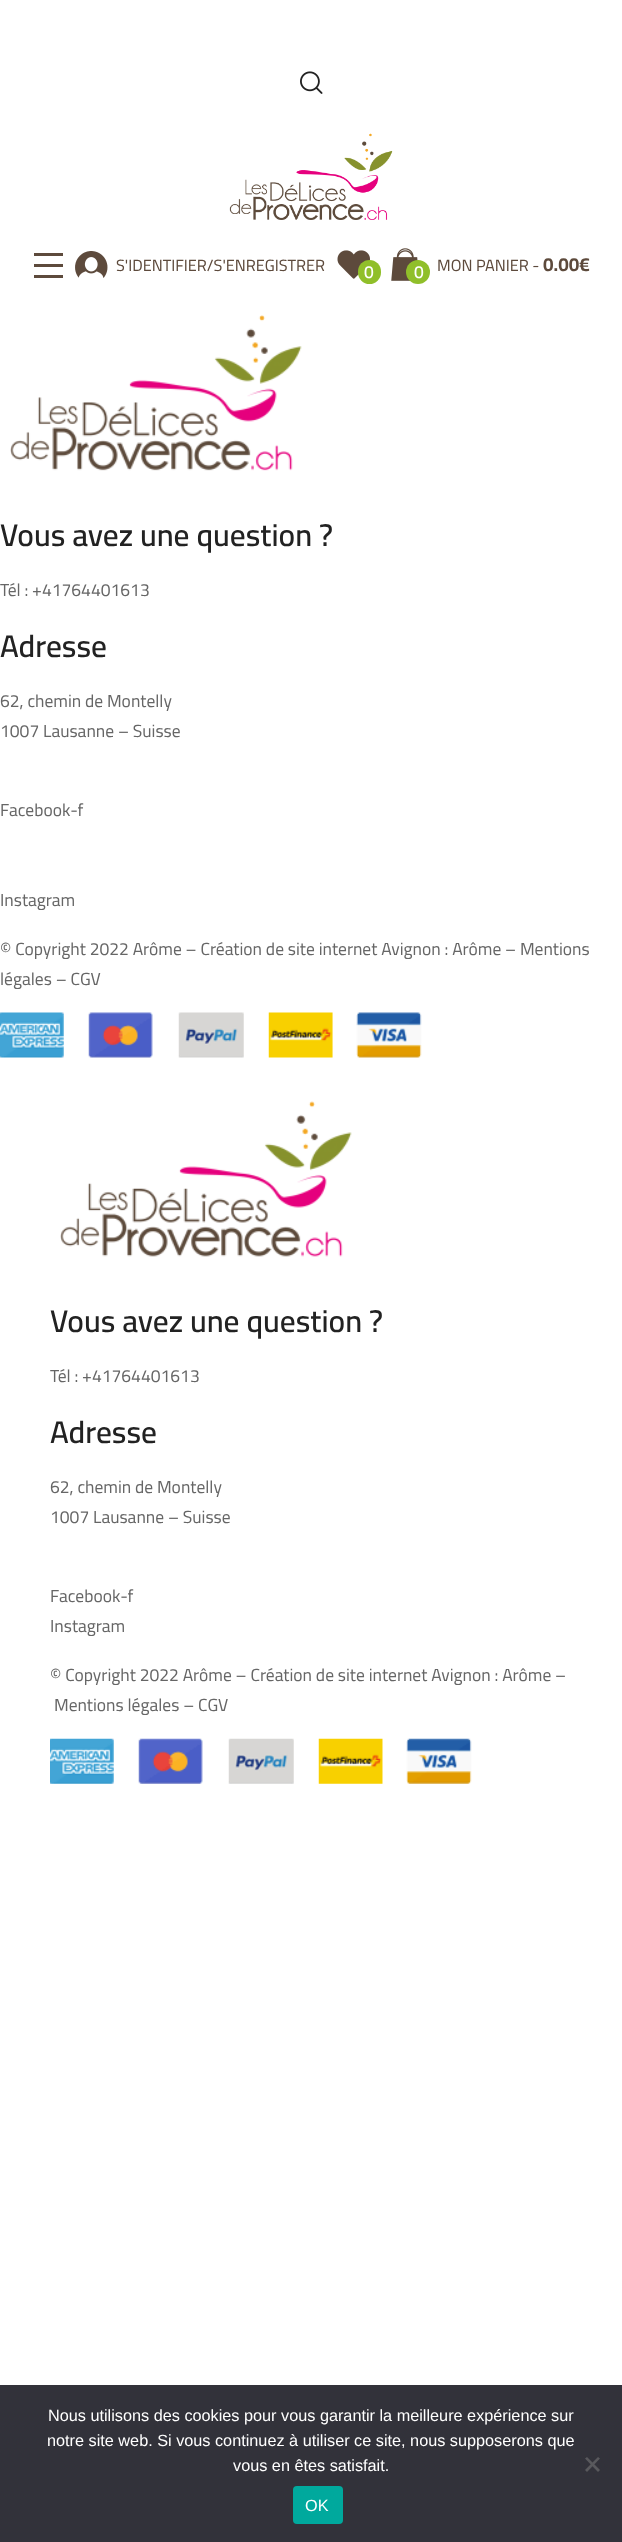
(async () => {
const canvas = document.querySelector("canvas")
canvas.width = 622
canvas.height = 2542
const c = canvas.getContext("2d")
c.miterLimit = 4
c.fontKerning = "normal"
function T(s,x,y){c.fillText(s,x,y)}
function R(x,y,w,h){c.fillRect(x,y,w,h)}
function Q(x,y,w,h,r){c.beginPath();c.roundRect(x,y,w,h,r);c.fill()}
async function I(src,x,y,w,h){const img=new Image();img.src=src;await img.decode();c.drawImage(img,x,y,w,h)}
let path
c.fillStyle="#fff"
R(0,0,622,2542)
await I("1.png",300,71,23,23)
await I("2.png",229,133,164,87)
c.fillStyle="#5d4a3c"
R(34,253,29,3)
R(34,264,29,3)
R(34,275,29,3)
await I("3.png",75,251,33,27)
c.font="16.25px Cairo"
T("S'IDENTIFIER/S'ENREGISTRER",116,271)
await I("4.png",337,250,33,29)
c.fillStyle="#90bf2a"
Q(358,260,23,24,11.5)
c.font="600 17.5px Cairo"
c.fillStyle="#fff"
T("0",364,278)
await I("5.png",391,248,27,33)
c.fillStyle="#90bf2a"
c.beginPath()
c.arc(418,272,12,0,7)
c.fill()
c.fillStyle="#fff"
T("0",414,278)
c.font="16.25px Cairo"
c.fillStyle="#5d4a3c"
T("MON PANIER -",437,271)
c.font="bold 19px Cairo"
T("0.00€",543,271)
await I("6.png",10,315,292,156)
c.font="600 31.25px Cairo"
c.fillStyle="#222"
T("Vous avez une question ?",0,546)
c.font="17.5px Cairo"
c.fillStyle="#666"
T("Tél : +41764401613",0,596)
c.font="600 31.25px Cairo"
c.fillStyle="#222"
T("Adresse",0,657)
c.font="17.5px Cairo"
c.fillStyle="#666"
T("62, chemin de Montelly",0,707)
T("1007 Lausanne – Suisse",0,737)
T("Facebook-f",0,816)
T("Instagram",0,906)
T("© Copyright 2022 Arôme – Création de site internet Avignon : Arôme – Mentions",0,955)
T("légales – CGV",0,985)
await I("7.png",0,1012,422,46)
await I("8.png",60,1101,292,156)
c.font="600 31.25px Cairo"
c.fillStyle="#222"
T("Vous avez une question ?",50,1332)
c.font="17.5px Cairo"
c.fillStyle="#666"
T("Tél : +41764401613",50,1382)
c.font="600 31.25px Cairo"
c.fillStyle="#222"
T("Adresse",50,1443)
c.font="17.5px Cairo"
c.fillStyle="#666"
T("62, chemin de Montelly",50,1493)
T("1007 Lausanne – Suisse",50,1523)
T("Facebook-f",50,1602)
T("Instagram",50,1632)
T("© Copyright 2022 Arôme – Création de site internet Avignon : Arôme –",50,1681)
T("Mentions légales – CGV",54,1711)
await I("9.png",50,1738,422,46)
c.fillStyle="#32323a"
R(0,2385,622,157)
c.font="16.25px Liberation Sans"
c.fillStyle="#fff"
T("Nous utilisons des cookies pour vous garantir la meilleure expérience sur",48,2421)
T("notre site web. Si vous continuez à utiliser ce site, nous supposerons que",47,2446)
T("vous en êtes satisfait.",233,2471)
c.fillStyle="#59595d"
path = new Path2D("M598 2457l2 1.5l-13 13.5l-2-2z")
c.fill(path)
path = new Path2D("M585 2458.5l2-1.5l13 13l-2 2z")
c.fill(path)
c.fillStyle="#00a99d"
Q(293,2486,50,38,4)
c.fillStyle="#fff"
T("OK",305,2511)
})()
